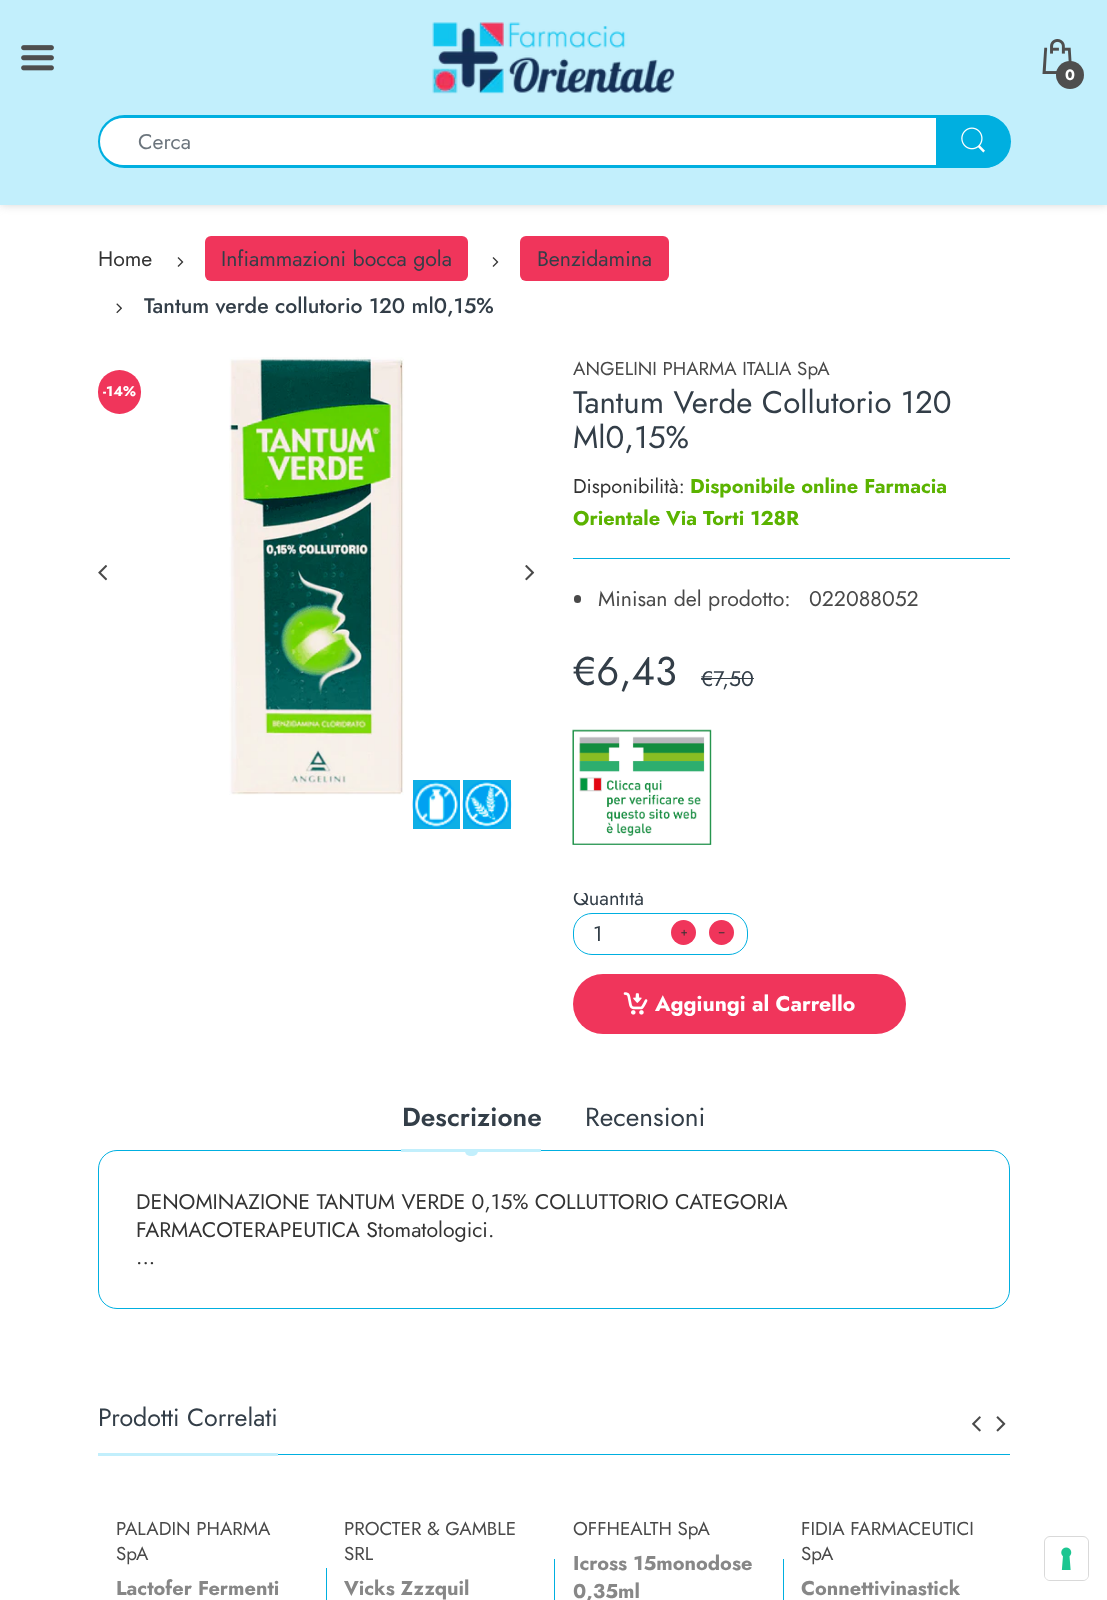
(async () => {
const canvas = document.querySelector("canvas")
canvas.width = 1107
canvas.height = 1600
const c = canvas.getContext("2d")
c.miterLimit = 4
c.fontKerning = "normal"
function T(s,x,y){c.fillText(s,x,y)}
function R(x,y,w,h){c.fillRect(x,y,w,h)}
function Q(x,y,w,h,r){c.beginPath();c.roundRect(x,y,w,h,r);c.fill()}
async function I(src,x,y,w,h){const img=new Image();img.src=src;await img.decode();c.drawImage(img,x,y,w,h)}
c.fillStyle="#fff"
R(0,0,1107,1600)
c.fillStyle="#c9c9c9bf"
c.filter="blur(5px)"
c.beginPath()
c.rect(0,0,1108,205)
c.fill()
c.filter="none"
c.fillStyle="#c2effc"
R(0,0,1107,205)
await I("1.png",21,45,33,26)
await I("2.png",432,22,243,72)
await I("3.png",1042,39,30,35)
c.fillStyle="#4e4e4e"
c.beginPath()
c.arc(1070,75,14,0,7)
c.fill()
c.font="bold 15px Jost"
c.fillStyle="#fff"
T("0",1065,80)
c.beginPath()
c.roundRect(99.5,116.5,909,50,25)
c.strokeStyle="#00afe0"
c.lineWidth=3
c.stroke()
Q(100,118,908,47,23.5)
c.font="21.25px Jost"
c.fillStyle="#6c757d"
T("Cerca",138,149)
c.fillStyle="#00afe0"
c.beginPath()
c.roundRect(936,115,75,53,[0,26.5,26.5,0])
c.fill()
await I("4.png",961,127,24,26)
c.fillStyle="#333"
T("Home",98,266)
await I("5.png",177,257,7,10)
c.fillStyle="#f0355b"
Q(205,236,263,45,6)
c.fillStyle="#333e48"
T("Infiammazioni bocca gola",221,266)
await I("5.png",492,257,7,10)
c.fillStyle="#f0355b"
Q(520,236,149,45,6)
c.fillStyle="#333e48"
T("Benzidamina",537,266)
await I("6.png",116,303,6,11)
c.font="500 21.25px Jost"
T("Tantum verde collutorio 120 ml0,15%",144,313)
c.fillStyle="#f0355b"
Q(98,370,43,44,21.5)
c.font="bold 14px Jost"
c.fillStyle="#fff"
T("-14%",103,396)
await I("7.png",229,357,175,438)
await I("8.png",98,565,10,16)
await I("9.png",525,565,10,16)
c.fillStyle="#0eafe6"
R(413,780,47,49)
await I("10.png",412,781,48,48)
R(463,780,48,49)
await I("11.png",462,780,50,49)
c.font="18.75px Jost"
c.fillStyle="#494949"
T("ANGELINI PHARMA ITALIA SpA",573,375)
c.font="31.25px Jost"
c.fillStyle="#333e48"
T("Tantum Verde Collutorio 120",573,413)
T("Ml0,15%",573,448)
c.fillStyle="#00afe0"
R(573,558,437,1)
c.font="20px Jost"
c.fillStyle="#333"
T("Disponibilità:",573,493)
c.font="bold 20px Jost"
c.fillStyle="#5bb300"
T("Disponibile online Farmacia",690,493)
T("Orientale Via Torti 128R",573,525)
c.fillStyle="#494949"
Q(574,595,7,8,3.5)
c.font="21.25px Jost"
T("Minisan del prodotto:",598,606)
T("022088052",809,606)
c.font="40px Jost"
c.fillStyle="#333e48"
T("€6,43",573,685)
c.font="21.25px Jost"
T("€7,50",701,686)
R(701,678,53,1)
await I("12.png",572,729,140,116)
c.save()
c.beginPath()
c.rect(573,893,437,160)
c.clip()
c.font="20px Jost"
T("Quantità",573,905)
c.restore()
c.beginPath()
c.roundRect(573.5,913.5,174,41,18.5)
c.lineWidth=1
c.stroke()
T("1",593,941)
c.fillStyle="#f0355b"
c.beginPath()
c.arc(683.5,932.5,12.5,0,7)
c.fill()
await I("13.png",681,929,6,7)
c.beginPath()
c.arc(721.5,932.5,12.5,0,7)
c.fill()
await I("14.png",718,932,7,2)
Q(573,974,333,60,30)
await I("15.png",623,992,25,23)
c.font="bold 21.25px Jost"
c.fillStyle="#fff"
T("Aggiungi al Carrello",655,1011)
c.font="600 26.25px Jost"
c.fillStyle="#333e48"
T("Descrizione",402,1126)
c.beginPath()
c.roundRect(98.5,1150.5,911,158,18.5)
c.stroke()
c.fillStyle="#c2effc"
R(401,1149,140,3)
c.beginPath()
c.roundRect(465,1151,13,5,[0,0,5,5])
c.fill()
c.font="26.25px Jost"
c.fillStyle="#333e48"
T("Recensioni",585,1126)
c.font="21.25px Jost"
c.fillStyle="#333"
T("DENOMINAZIONE TANTUM VERDE 0,15% COLLUTTORIO CATEGORIA",136,1209)
T("FARMACOTERAPEUTICA Stomatologici.",136,1237)
T("...",136,1264)
c.fillStyle="#00afe0"
R(278,1454,732,1)
c.font="25px Jost"
c.fillStyle="#333e48"
T("Prodotti Correlati",98,1426)
c.fillStyle="#c2effc"
R(98,1453,180,3)
await I("16.png",972,1416,9,16)
await I("17.png",996,1416,10,16)
c.font="18.75px Jost"
c.fillStyle="#494949"
T("PALADIN PHARMA",116,1535)
T("SpA",116,1560)
c.font="bold 20px Jost"
c.fillStyle="#878787"
T("Lactofer Fermenti",116,1595)
c.fillStyle="#00afe0"
R(326,1568,1,32)
c.font="18.75px Jost"
c.fillStyle="#494949"
T("PROCTER & GAMBLE",344,1535)
T("SRL",344,1560)
c.font="bold 20px Jost"
c.fillStyle="#878787"
T("Vicks Zzzquil",344,1595)
c.fillStyle="#00afe0"
R(554,1559,1,41)
c.font="18.75px Jost"
c.fillStyle="#494949"
T("OFFHEALTH SpA",573,1535)
c.font="bold 20px Jost"
c.fillStyle="#878787"
T("Icross 15monodose",573,1570)
T("0,35ml",573,1598)
c.fillStyle="#00afe0"
R(783,1559,1,41)
c.font="18.75px Jost"
c.fillStyle="#494949"
T("FIDIA FARMACEUTICI",801,1535)
T("SpA",801,1560)
c.font="bold 20px Jost"
c.fillStyle="#878787"
T("Connettivinastick",801,1595)
c.beginPath()
c.roundRect(1044.5,1536.5,44,44,5.5)
c.strokeStyle="#d9d9d9"
c.stroke()
c.fillStyle="#fff"
Q(1045,1538,43,42,5)
await I("18.png",1061,1547,11,23)
})()
